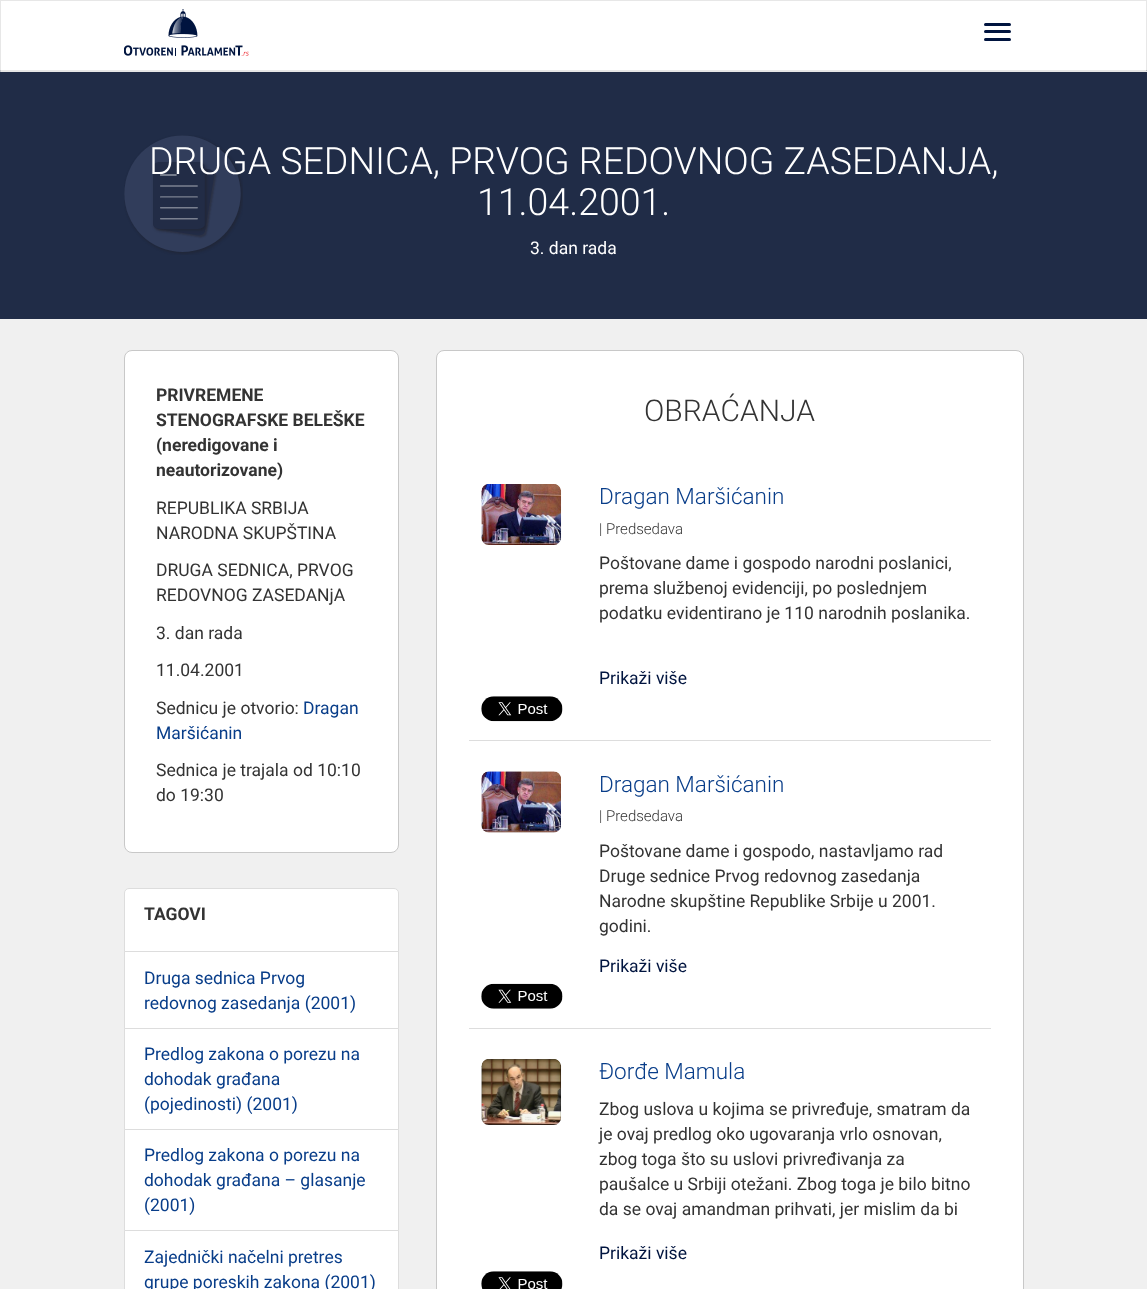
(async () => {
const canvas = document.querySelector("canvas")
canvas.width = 1147
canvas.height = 1289
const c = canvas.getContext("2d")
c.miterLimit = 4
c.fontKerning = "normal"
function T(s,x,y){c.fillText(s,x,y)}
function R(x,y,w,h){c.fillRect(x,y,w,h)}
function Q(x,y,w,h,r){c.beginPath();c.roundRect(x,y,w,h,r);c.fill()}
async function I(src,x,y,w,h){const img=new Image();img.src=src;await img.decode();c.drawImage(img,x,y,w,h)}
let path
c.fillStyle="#f0f0f0"
R(0,0,1147,1289)
c.fillStyle="#fff"
R(1,1,1145,69)
c.fillStyle="#e7e7e7"
R(0,0,1147,1)
c.fillStyle="#202c47"
R(0,70,1147,249)
c.fillStyle="#e7e7e7"
path = new Path2D("M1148 0v72l-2-2v-69z")
c.fill(path)
c.fillStyle="#e6e6e6"
path = new Path2D("M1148 72h-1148l1-2h1145z")
c.fill(path)
c.fillStyle="#e7e7e7"
path = new Path2D("M0 72v-72l1 1v69z")
c.fill(path)
await I("1.png",124,9,125,47)
c.fillStyle="#00143f"
Q(984,23,27,3,1.5)
Q(984,30,27,3,1.5)
Q(984,38,27,3,1.5)
await I("2.png",124,135,119,120)
c.font="300 37.5px Roboto"
c.fillStyle="#fff"
T("DRUGA SEDNICA, PRVOG REDOVNOG ZASEDANJA,",149,174)
T("11.04.2001.",477,215)
c.font="17.5px Roboto"
T("3. dan rada",530,254)
c.beginPath()
c.roundRect(124.5,350.5,274,502,7.5)
c.fill()
c.strokeStyle="#c8c8c8"
c.stroke()
c.font="bold 17.5px Roboto"
c.fillStyle="#333"
T("PRIVREMENE",156,401)
T("STENOGRAFSKE BELEŠKE",156,426)
T("(neredigovane i",156,451)
T("neautorizovane)",156,476)
c.font="17.5px Roboto"
T("REPUBLIKA SRBIJA",156,514)
T("NARODNA SKUPŠTINA",156,539)
T("DRUGA SEDNICA, PRVOG",156,576)
T("REDOVNOG ZASEDANjA",156,601)
T("3. dan rada",156,639)
T("11.04.2001",156,676)
T("Sednicu je otvorio:",156,714)
c.fillStyle="#083d89"
T("Dragan",303,714)
T("Maršićanin",156,739)
c.fillStyle="#333"
T("Sednica je trajala od 10:10",156,776)
T("do 19:30",156,801)
c.fillStyle="#fff"
c.beginPath()
c.roundRect(124.5,888.5,274,64,[4.5,4.5,0,0])
c.fill()
c.strokeStyle="#ddd"
c.stroke()
c.font="bold 17.5px Roboto"
c.fillStyle="#333"
T("TAGOVI",144,920)
c.fillStyle="#fff"
c.beginPath()
c.rect(124.5,951.5,274,77)
c.fill()
c.stroke()
c.font="17.5px Roboto"
c.fillStyle="#083d89"
T("Druga sednica Prvog",144,984)
T("redovnog zasedanja (2001)",144,1009)
c.fillStyle="#fff"
c.beginPath()
c.rect(124.5,1028.5,274,101)
c.fill()
c.stroke()
c.fillStyle="#083d89"
T("Predlog zakona o porezu na",144,1060)
T("dohodak građana",144,1085)
T("(pojedinosti) (2001)",144,1110)
c.fillStyle="#fff"
c.beginPath()
c.rect(124.5,1129.5,274,101)
c.fill()
c.stroke()
c.fillStyle="#083d89"
T("Predlog zakona o porezu na",144,1161)
T("dohodak građana – glasanje",144,1186)
T("(2001)",144,1211)
c.fillStyle="#fff"
c.beginPath()
c.rect(124.5,1230.5,274,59)
c.fill()
c.stroke()
c.fillStyle="#083d89"
T("Zajednički načelni pretres",144,1263)
T("grupe poreskih zakona (2001)",144,1288)
c.fillStyle="#fff"
c.beginPath()
c.roundRect(436.5,350.5,587,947,7.5)
c.fill()
c.strokeStyle="#c8c8c8"
c.stroke()
c.font="300 30px Roboto"
c.fillStyle="#333"
T("OBRAĆANJA",644,421)
c.fillStyle="#ddd"
R(469,740,522,1)
await I("3.png",481,484,81,61)
c.font="300 22.5px Roboto"
c.fillStyle="#083d89"
T("Dragan Maršićanin",599,504)
c.font="300 15px Roboto"
c.fillStyle="#333"
T("| Predsedava",599,534)
c.font="17.5px Roboto"
T("Poštovane dame i gospodo narodni poslanici,",599,569)
T("prema službenoj evidenciji, po poslednjem",599,594)
T("podatku evidentirano je 110 narodnih poslanika.",599,619)
c.fillStyle="#00143f"
T("Prikaži više",599,684)
await I("4.png",481,696,82,26)
c.fillStyle="#ddd"
R(469,1028,522,1)
await I("5.png",481,771,80,62)
c.font="300 22.5px Roboto"
c.fillStyle="#083d89"
T("Dragan Maršićanin",599,792)
c.font="300 15px Roboto"
c.fillStyle="#333"
T("| Predsedava",599,821)
c.font="17.5px Roboto"
T("Poštovane dame i gospodo, nastavljamo rad",599,857)
T("Druge sednice Prvog redovnog zasedanja",599,882)
T("Narodne skupštine Republike Srbije u 2001.",599,907)
T("godini.",599,932)
c.fillStyle="#00143f"
T("Prikaži više",599,972)
await I("6.png",481,983,82,26)
await I("7.png",481,1059,81,66)
c.font="300 22.5px Roboto"
c.fillStyle="#083d89"
T("Đorđe Mamula",599,1079)
c.font="17.5px Roboto"
c.fillStyle="#333"
T("Zbog uslova u kojima se privređuje, smatram da",599,1115)
T("je ovaj predlog oko ugovaranja vrlo osnovan,",599,1140)
T("zbog toga što su uslovi privređivanja za",599,1165)
T("paušalce u Srbiji otežani. Zbog toga je bilo bitno",599,1190)
T("da se ovaj amandman prihvati, jer mislim da bi",599,1215)
c.fillStyle="#00143f"
T("Prikaži više",599,1259)
await I("8.png",481,1271,82,18)
})()
